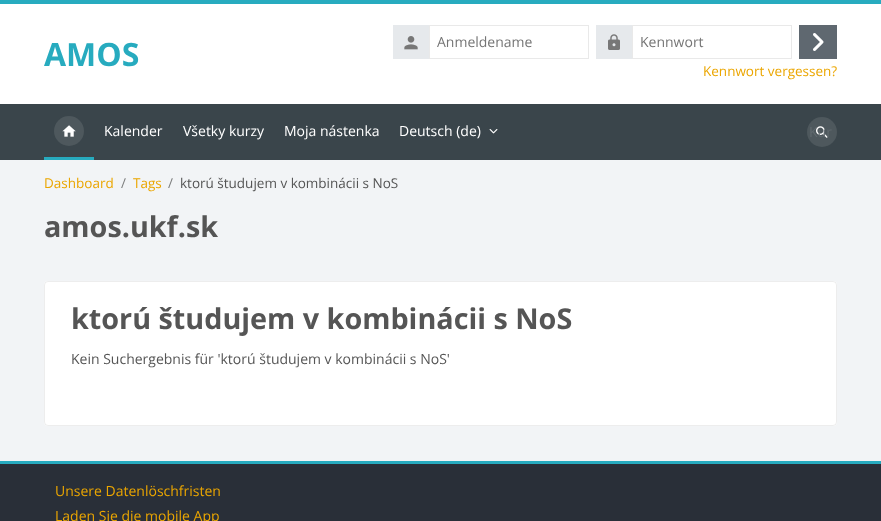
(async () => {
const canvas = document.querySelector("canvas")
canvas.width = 881
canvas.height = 521
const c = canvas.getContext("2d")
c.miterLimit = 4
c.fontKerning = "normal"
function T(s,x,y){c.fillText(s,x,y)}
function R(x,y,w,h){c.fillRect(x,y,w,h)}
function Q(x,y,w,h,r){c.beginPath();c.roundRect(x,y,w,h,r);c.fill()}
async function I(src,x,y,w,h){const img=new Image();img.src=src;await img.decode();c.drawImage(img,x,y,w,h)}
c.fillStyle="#f2f4f6"
R(0,0,881,521)
c.fillStyle="#27abbf"
R(0,0,881,4)
c.fillStyle="#fff"
R(0,4,881,100)
c.font="bold 32px Open Sans"
c.fillStyle="#27abbf"
T("AMOS",44,66)
c.fillStyle="#e6e9ec"
R(393,25,36,34)
await I("1.png",404,36,14,14)
c.strokeStyle="#e9e9e9"
c.strokeRect(429.5,25.5,159,33)
c.font="14px Open Sans"
c.fillStyle="#757575"
T("Anmeldename",437,47)
c.fillStyle="#e6e9ec"
R(596,25,36,34)
await I("2.png",608,34,12,16)
c.strokeRect(632.5,25.5,159,33)
c.fillStyle="#757575"
T("Kennwort",640,47)
c.fillStyle="#5f6870"
R(799,25,38,34)
await I("3.png",813,33,11,18)
c.font="13.5px Open Sans"
c.fillStyle="#eba600"
T("Kennwort vergessen?",703,76)
c.fillStyle="#3a454b"
R(0,104,881,56)
c.fillStyle="#27abbf"
R(44,157,50,3)
c.fillStyle="#4e585d"
c.beginPath()
c.arc(69,131,15,0,7)
c.fill()
await I("4.png",62,125,14,12)
c.font="14px Open Sans"
c.fillStyle="#fff"
T("Kalender",104,136)
T("Všetky kurzy",183,136)
T("Moja nástenka",284,136)
T("Deutsch (de)",399,136)
await I("5.png",489,129,9,5)
c.fillStyle="#4e585d"
c.beginPath()
c.arc(822,132,15,0,7)
c.fill()
await I("6.png",816,126,12,12)
c.fillStyle="#60696e"
T("Kur",809,137)
c.font="13.5px Open Sans"
c.fillStyle="#eba600"
T("Dashboard",44,188)
c.fillStyle="#7c7d7d"
T("/",121,188)
c.fillStyle="#eba600"
T("Tags",133,188)
c.fillStyle="#7c7d7d"
T("/",168,188)
c.fillStyle="#555"
T("ktorú študujem v kombinácii s NoS",180,188)
c.font="bold 28.75px Open Sans"
T("amos.ukf.sk",44,237)
c.fillStyle="#fff"
Q(44,281,793,145,4)
c.beginPath()
c.roundRect(44.5,281.5,792,144,3.5)
c.strokeStyle="#00000012"
c.stroke()
c.fillStyle="#555"
T("ktorú študujem v kombinácii s NoS",71,329)
c.font="14px Open Sans"
T("Kein Suchergebnis für 'ktorú študujem v kombinácii s NoS'",71,364)
c.fillStyle="#27abbf"
R(0,461,881,3)
c.fillStyle="#292f38"
R(0,464,881,57)
c.fillStyle="#eba600"
T("Unsere Datenlöschfristen",55,496)
T("Laden Sie die mobile App",55,521)
})()
